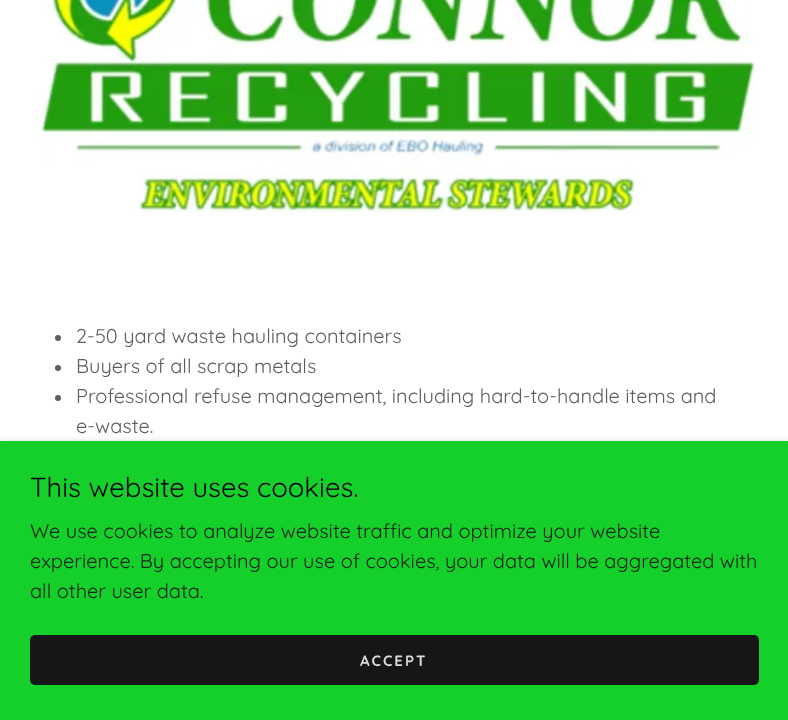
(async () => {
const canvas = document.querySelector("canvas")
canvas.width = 788
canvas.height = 720
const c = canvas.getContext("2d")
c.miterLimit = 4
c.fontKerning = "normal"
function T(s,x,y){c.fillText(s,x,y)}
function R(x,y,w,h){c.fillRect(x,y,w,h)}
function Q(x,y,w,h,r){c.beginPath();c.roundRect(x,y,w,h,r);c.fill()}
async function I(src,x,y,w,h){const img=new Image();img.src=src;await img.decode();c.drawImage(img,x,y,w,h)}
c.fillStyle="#fff"
R(0,0,788,720)
await I("1.png",39,0,716,212)
c.fillStyle="#5e5e5e"
c.beginPath()
c.arc(58,338,3,0,7)
c.fill()
c.font="20px Quicksand"
T("2-50 yard waste hauling containers",76,343)
c.beginPath()
c.arc(58,368,3,0,7)
c.fill()
T("Buyers of all scrap metals",76,373)
c.beginPath()
c.arc(58,398,3,0,7)
c.fill()
T("Professional refuse management, including hard-to-handle items and",76,403)
T("e-waste.",76,433)
c.fillStyle="#0000004d"
c.filter="blur(4px)"
c.beginPath()
c.rect(0,444,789,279)
c.fill()
c.filter="none"
c.fillStyle="#15cf2b"
R(0,441,788,279)
c.font="27.5px Quicksand"
c.fillStyle="#000"
T("This website uses cookies.",30,497)
c.font="20px Quicksand"
c.fillStyle="#1d231d"
T("We use cookies to analyze website traffic and optimize your website",30,538)
T("experience. By accepting our use of cookies, your data will be aggregated with",30,568)
T("all other user data.",30,598)
c.fillStyle="#161616"
Q(30,635,729,50,5)
c.letterSpacing="2px"
c.font="bold 15px Quicksand"
c.fillStyle="#dbdbdb"
T("ACCEPT",360,666)
})()
